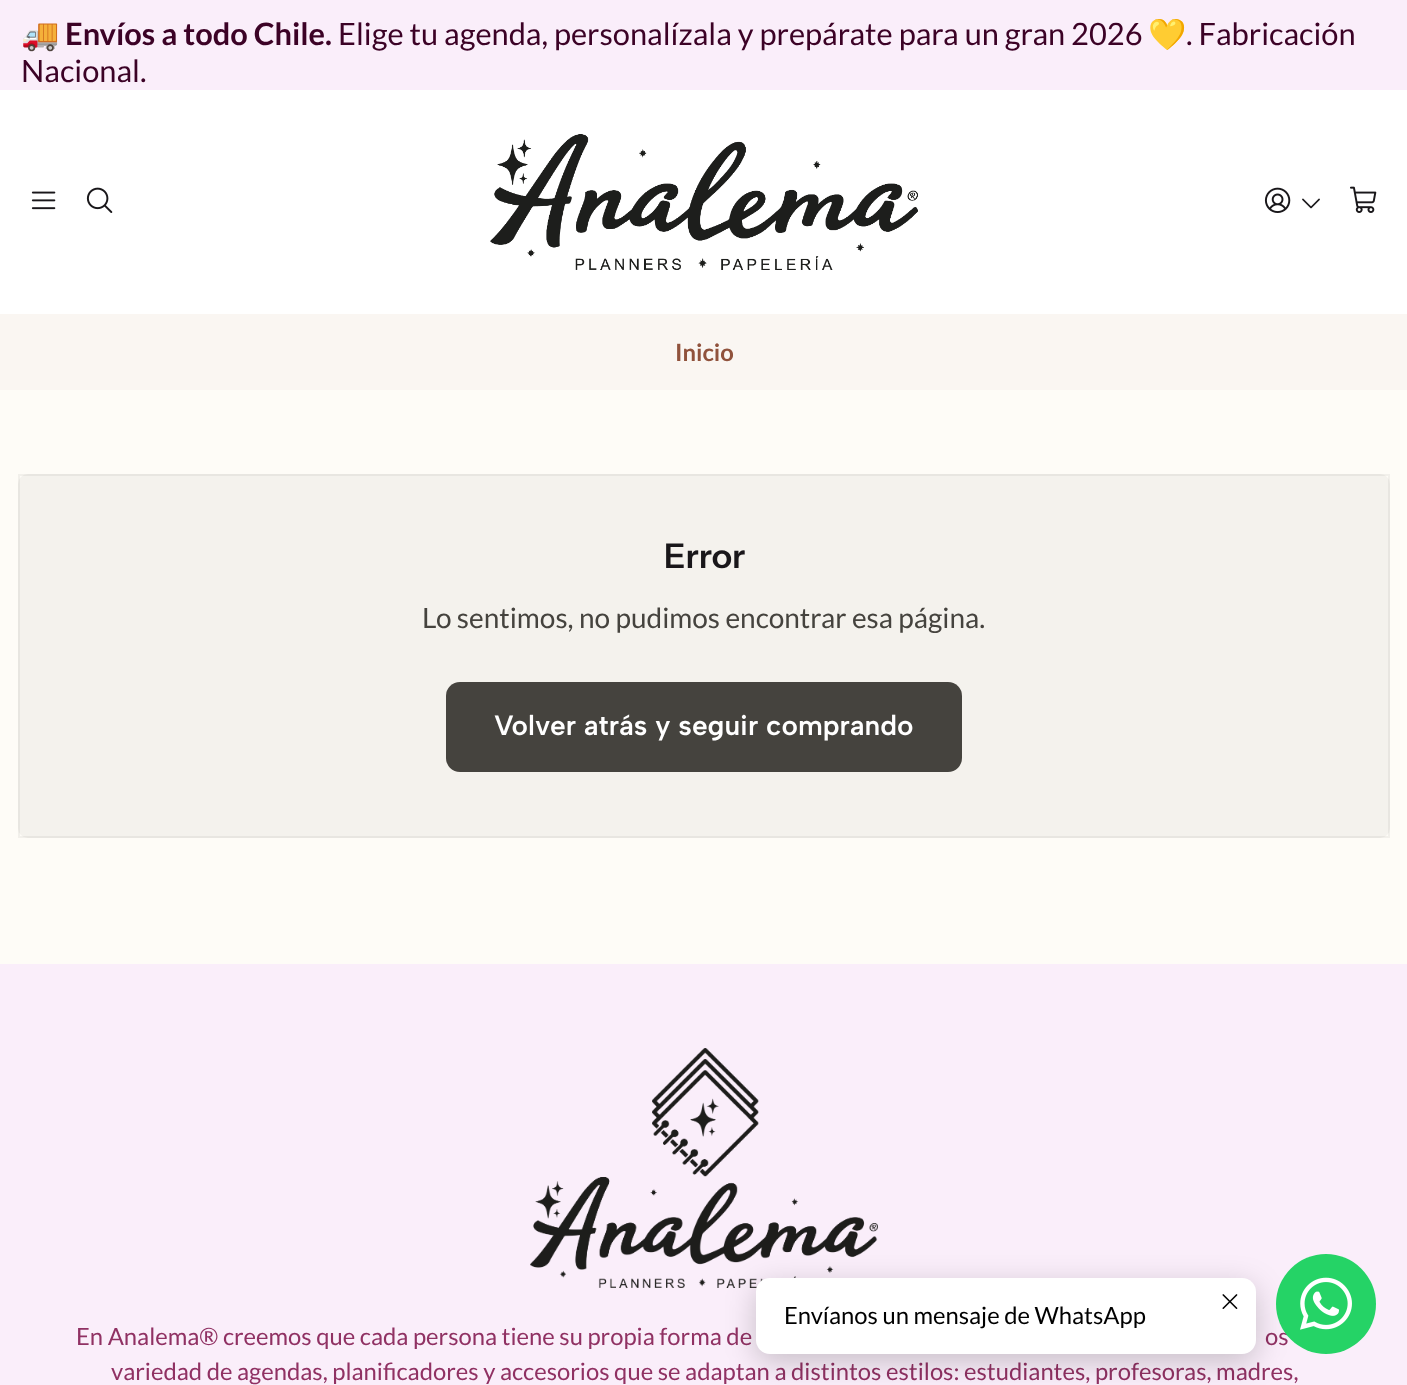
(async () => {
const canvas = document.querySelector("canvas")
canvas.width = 1407
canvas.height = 1385
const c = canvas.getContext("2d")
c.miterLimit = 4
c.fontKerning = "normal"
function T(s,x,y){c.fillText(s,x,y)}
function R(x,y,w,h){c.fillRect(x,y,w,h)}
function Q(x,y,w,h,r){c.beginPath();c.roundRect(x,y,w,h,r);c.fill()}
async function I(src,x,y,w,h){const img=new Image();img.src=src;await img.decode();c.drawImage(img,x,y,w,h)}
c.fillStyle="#fefcf7"
R(0,0,1407,1385)
c.fillStyle="#faeefa"
R(0,0,1407,90)
c.save()
c.beginPath()
c.rect(22,0,1366,104)
c.clip()
c.font="30.8px Noto Color Emoji"
c.fillStyle="#3c0226"
T("🚚",21,45)
c.restore()
c.font="bold 30.8px Lato"
c.fillStyle="#3c0226"
T("Envíos a todo Chile.",65,45)
c.font="30.8px Lato"
T("Elige tu agenda, personalízala y prepárate para un gran 2026",338,45)
c.font="30.8px Noto Color Emoji"
T("💛",1148,45)
c.font="30.8px Lato"
T(". Fabricación",1186,45)
T("Nacional.",21,82)
c.fillStyle="#fff"
R(0,90,1407,224)
await I("1.png",31,191,25,19)
await I("2.png",86,187,27,26)
await I("3.png",490,134,428,136)
await I("4.png",1264,187,27,26)
await I("5.png",1302,198,18,11)
await I("6.png",1350,186,27,27)
c.fillStyle="#faf6f2"
R(0,314,1407,76)
c.font="bold 23.8px Lato"
c.fillStyle="#90523c"
T("Inicio",675,361)
c.fillStyle="#f4f2ed"
Q(18,474,1372,364,10)
c.strokeStyle="#19171a0d"
c.lineWidth=2
c.strokeRect(19,475,1370,362)
c.font="600 34px Instrument Sans"
c.fillStyle="#19171a"
T("Error",664,568)
c.font="28px Lato"
c.fillStyle="#45433e"
T("Lo sentimos, no pudimos encontrar esa página.",422,628)
Q(446,682,516,90,14)
c.font="600 28px Albert Sans"
c.fillStyle="#fff"
T("Volver atrás y seguir comprando",494,735)
c.fillStyle="#faeefa"
R(0,964,1407,421)
await I("7.png",530,1048,348,240)
c.font="23.8px Lato"
c.fillStyle="#903163"
T("En Analema® creemos que cada persona tiene su propia forma de",76,1345)
T("os",1265,1345)
T("variedad de agendas, planificadores y accesorios que se adaptan a distintos estilos: estudiantes, profesoras, madres,",111,1380)
c.fillStyle="#00000033"
c.filter="blur(15px)"
c.beginPath()
c.roundRect(756,1286,500,76,14)
c.fill()
c.filter="none"
c.fillStyle="#fff"
Q(756,1278,500,76,14)
await I("8.png",1222,1294,16,15)
c.fillStyle="#000"
T("Envíanos un mensaje de WhatsApp",784,1324)
c.fillStyle="#25d366"
c.beginPath()
c.arc(1326,1304,50,0,7)
c.fill()
await I("9.png",1300,1277,52,53)
})()
